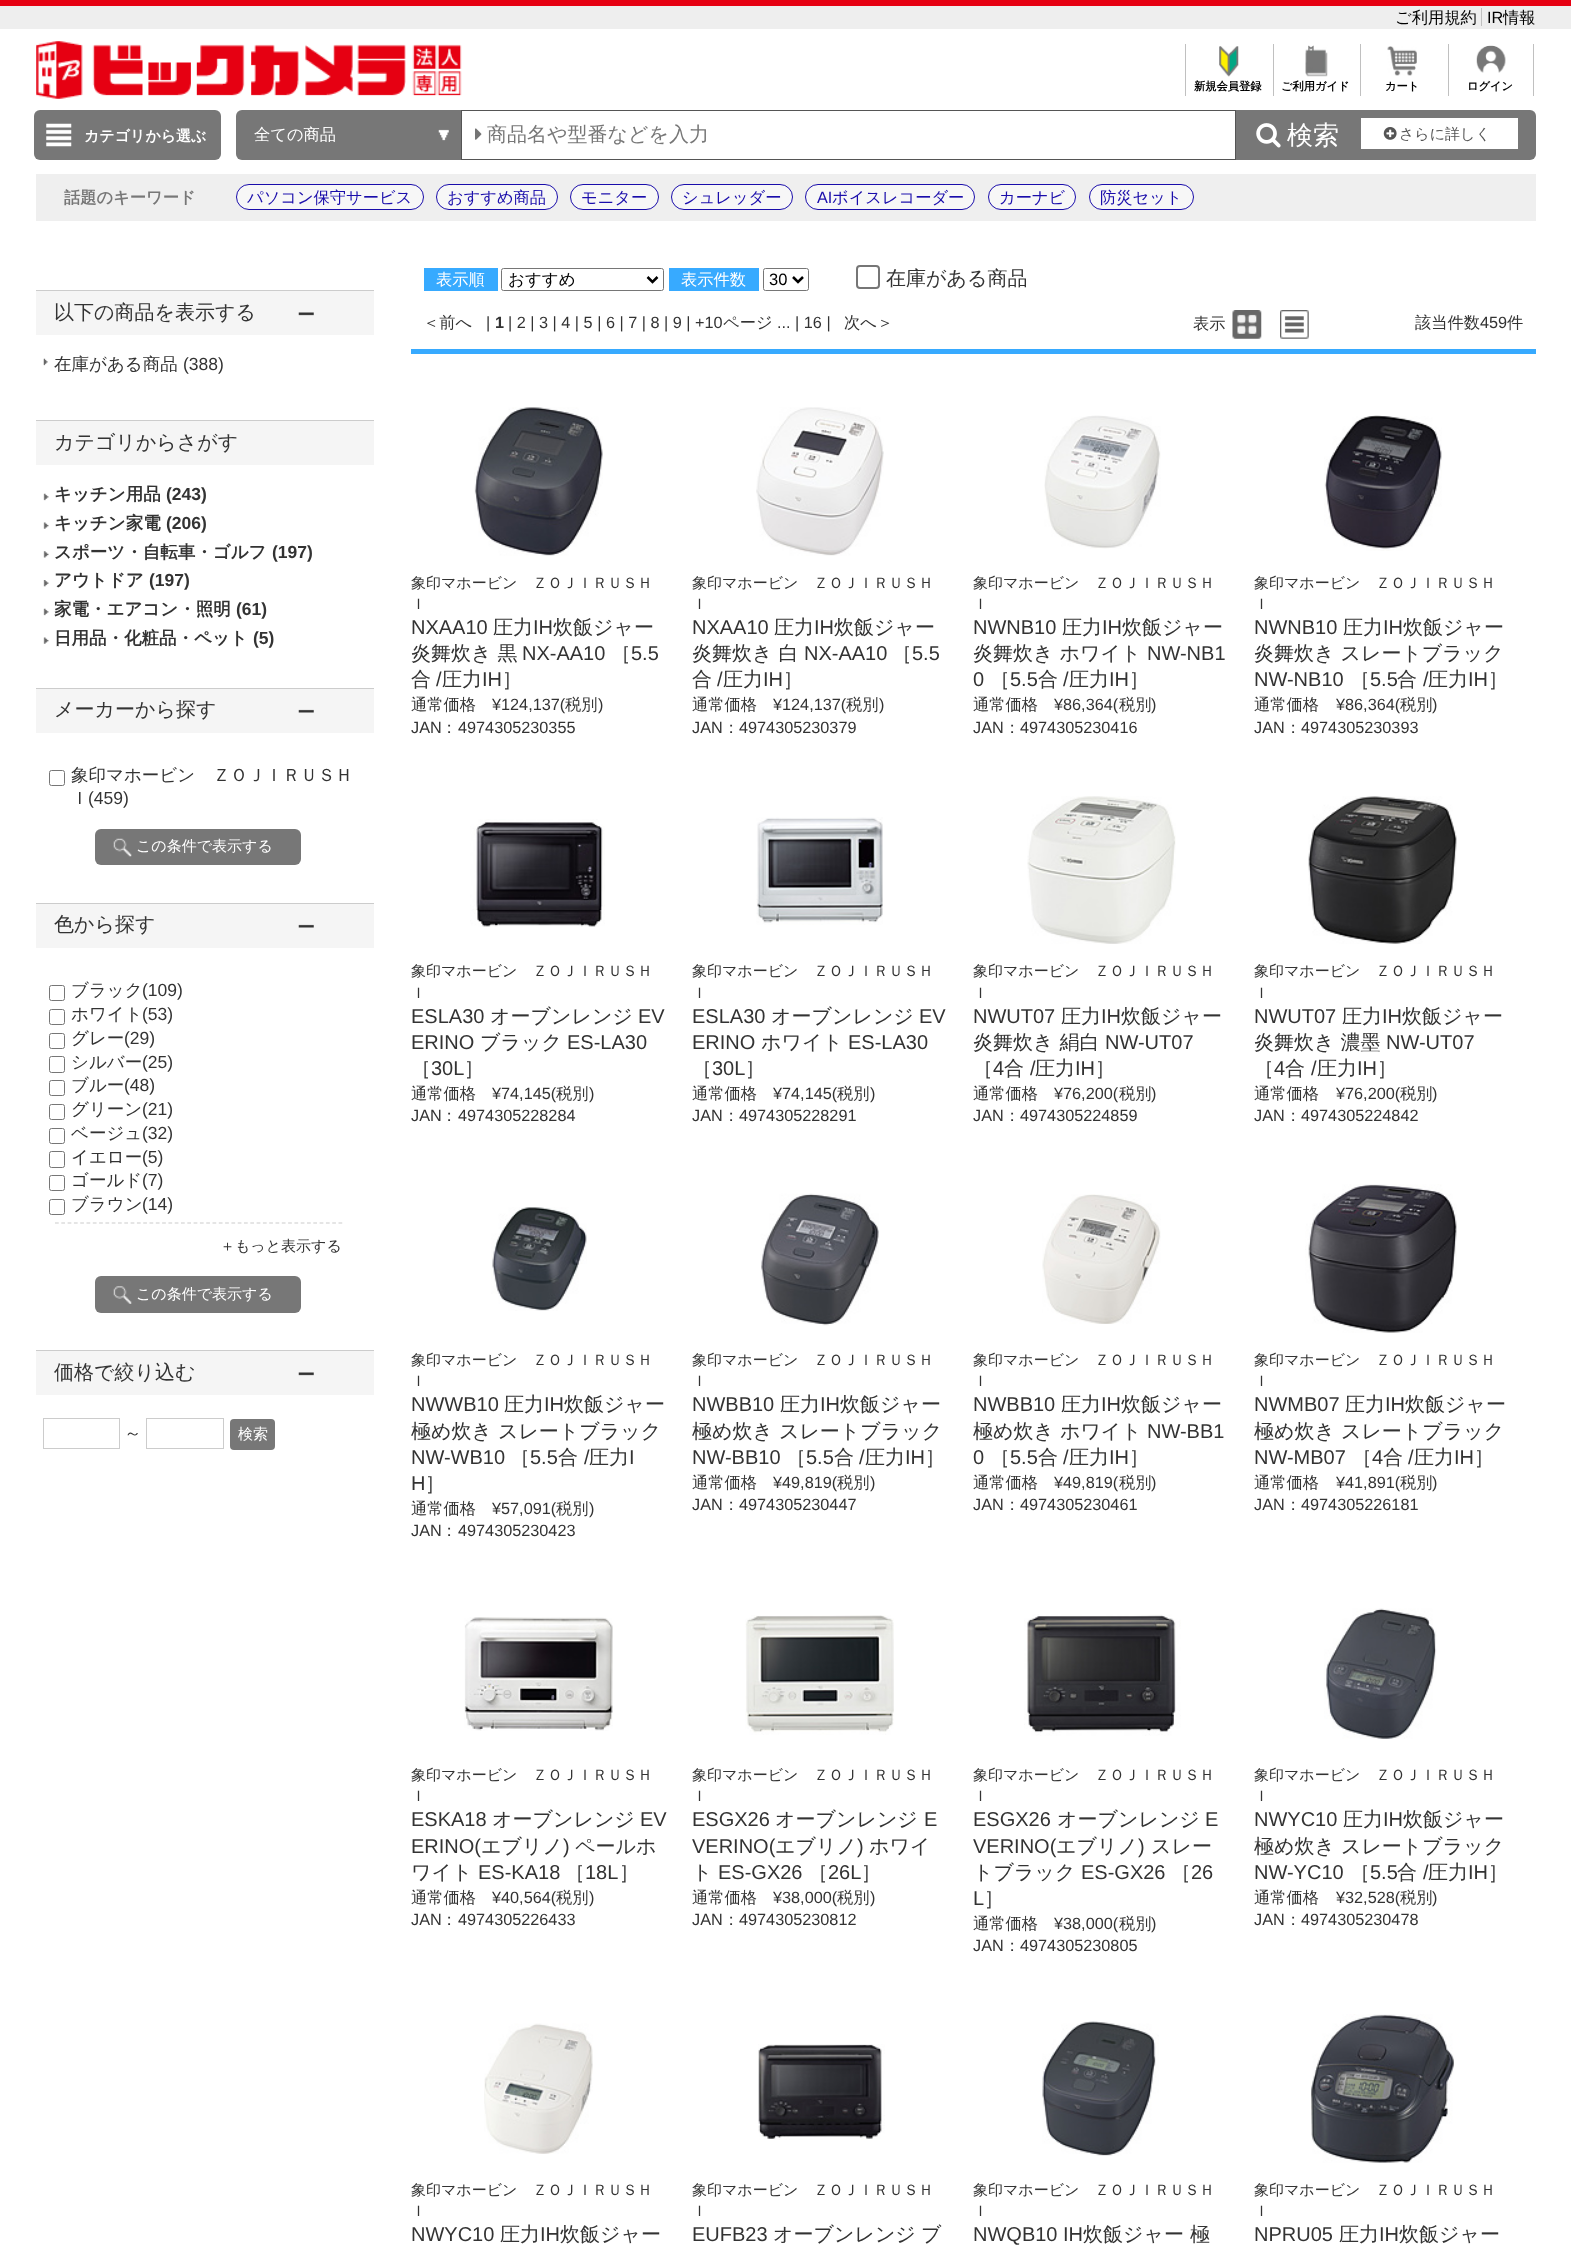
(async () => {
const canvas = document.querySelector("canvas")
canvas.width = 1571
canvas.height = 2248
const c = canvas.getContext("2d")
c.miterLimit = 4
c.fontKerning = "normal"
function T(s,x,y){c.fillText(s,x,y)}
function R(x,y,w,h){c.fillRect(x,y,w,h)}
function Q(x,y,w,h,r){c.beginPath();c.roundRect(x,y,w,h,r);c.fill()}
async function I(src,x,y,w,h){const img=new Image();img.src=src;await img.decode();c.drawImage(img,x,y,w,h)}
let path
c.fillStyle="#fff"
R(0,0,1571,2248)
c.fillStyle="#e60012"
R(0,0,1571,6)
c.fillStyle="#eee"
R(0,6,1571,23)
c.font="500 16.25px WenQuanYi Zen Hei"
c.fillStyle="#000"
T("ご利用規約",1395,23)
c.fillStyle="#c0c0c0"
R(1481,8,1,18)
c.font="16.25px Liberation Sans"
c.fillStyle="#000"
T("IR",1487,23)
c.font="500 16.25px WenQuanYi Zen Hei"
T("情報",1503,23)
await I("1.png",36,41,426,58)
c.fillStyle="#c0c0c0"
R(1185,44,1,52)
await I("2.png",1219,46,20,31)
c.font="bold 11.25px WenQuanYi Zen Hei"
c.fillStyle="#000"
T("新規会員登録",1194,90)
c.fillStyle="#c0c0c0"
R(1273,44,1,52)
await I("3.png",1305,45,23,32)
c.fillStyle="#000"
T("ご利用ガイド",1281,90)
c.fillStyle="#c0c0c0"
R(1360,44,1,52)
await I("4.png",1387,46,30,30)
c.fillStyle="#000"
T("カート",1385,90)
c.fillStyle="#c0c0c0"
R(1533,44,1,52)
R(1448,44,1,52)
await I("5.png",1476,45,30,28)
c.fillStyle="#000"
T("ログイン",1467,90)
c.fillStyle="#777"
Q(34,110,187,50,6)
await I("6.png",46,123,26,24)
c.font="bold 15px WenQuanYi Zen Hei"
c.fillStyle="#fff"
T("カテゴリから選ぶ",84,141)
c.fillStyle="#777"
c.beginPath()
c.roundRect(236,110,225,50,[6,0,0,6])
c.fill()
await I("7.png",438,129,11,12)
c.font="500 16.25px WenQuanYi Zen Hei"
c.fillStyle="#fff"
T("全ての商品",254,140)
c.strokeStyle="#555"
c.strokeRect(461.5,110.5,774,49)
await I("8.png",475,128,7,12)
c.font="500 20px WenQuanYi Zen Hei"
c.fillStyle="#777"
T("商品名や型番などを入力",487,141)
R(1236,110,125,50)
await I("9.png",1256,123,25,25)
c.font="500 26px WenQuanYi Zen Hei"
c.fillStyle="#fff"
T("検索",1287,144)
c.fillStyle="#777"
c.beginPath()
c.roundRect(1361,110,175,50,[0,6,6,0])
c.fill()
c.fillStyle="#fff"
R(1361,118,157,31)
await I("10.png",1383,127,14,13)
c.font="500 15px WenQuanYi Zen Hei"
c.fillStyle="#555"
T("さらに詳しく",1399,139)
c.fillStyle="#efefef"
R(36,174,1500,47)
c.font="bold 16.25px WenQuanYi Zen Hei"
c.fillStyle="#777"
T("話題のキーワード",64,203)
c.fillStyle="#f7f7f7"
c.beginPath()
c.roundRect(236.5,184.5,187,25,12.5)
c.fill()
c.strokeStyle="#1a0dab"
c.stroke()
c.font="500 16.25px WenQuanYi Zen Hei"
c.fillStyle="#1a0dab"
T("パソコン保守サービス",247,203)
c.fillStyle="#f7f7f7"
c.beginPath()
c.roundRect(436.5,184.5,121,25,12.5)
c.fill()
c.stroke()
c.fillStyle="#1a0dab"
T("おすすめ商品",447,203)
c.fillStyle="#f7f7f7"
c.beginPath()
c.roundRect(570.5,184.5,88,25,12.5)
c.fill()
c.stroke()
c.fillStyle="#1a0dab"
T("モニター",581,203)
c.fillStyle="#f7f7f7"
c.beginPath()
c.roundRect(671.5,184.5,121,25,12.5)
c.fill()
c.stroke()
c.fillStyle="#1a0dab"
T("シュレッダー",682,203)
c.fillStyle="#f7f7f7"
c.beginPath()
c.roundRect(805.5,184.5,169,25,12.5)
c.fill()
c.stroke()
c.font="16.25px Liberation Sans"
c.fillStyle="#1a0dab"
T("AI",817,203)
c.font="500 16.25px WenQuanYi Zen Hei"
T("ボイスレコーダー",832,203)
c.fillStyle="#f7f7f7"
c.beginPath()
c.roundRect(988.5,184.5,87,25,12.5)
c.fill()
c.stroke()
c.fillStyle="#1a0dab"
T("カーナビ",999,203)
c.fillStyle="#f7f7f7"
c.beginPath()
c.roundRect(1089.5,184.5,104,25,12.5)
c.fill()
c.stroke()
c.fillStyle="#1a0dab"
T("防災セット",1100,203)
c.fillStyle="#f5f5f5"
R(36,291,338,44)
await I("11.png",298,312,16,4)
c.fillStyle="#ccc"
R(36,290,338,1)
c.font="500 20px WenQuanYi Zen Hei"
c.fillStyle="#333"
T("以下の商品を表示する",54,319)
await I("12.png",43,358,5,8)
c.font="500 17.5px WenQuanYi Zen Hei"
T("在庫がある商品",54,370)
c.font="17.5px Liberation Sans"
T("(388)",183,370)
c.fillStyle="#f5f5f5"
R(36,421,338,44)
c.fillStyle="#ccc"
R(36,420,338,1)
c.font="500 20px WenQuanYi Zen Hei"
c.fillStyle="#333"
T("カテゴリからさがす",54,449)
await I("13.png",43,493,6,8)
c.font="bold 17.5px WenQuanYi Zen Hei"
T("キッチン用品",54,500)
c.font="bold 17.5px Liberation Sans"
T("(243)",166,500)
await I("14.png",43,522,6,7)
c.font="bold 17.5px WenQuanYi Zen Hei"
T("キッチン家電",54,529)
c.font="bold 17.5px Liberation Sans"
T("(206)",166,529)
await I("15.png",43,551,6,7)
c.font="bold 17.5px WenQuanYi Zen Hei"
T("スポーツ・自転車・ゴルフ",54,558)
c.font="bold 17.5px Liberation Sans"
T("(197)",272,558)
await I("16.png",43,580,6,7)
c.font="bold 17.5px WenQuanYi Zen Hei"
T("アウトドア",54,586)
c.font="bold 17.5px Liberation Sans"
T("(197)",149,586)
await I("13.png",43,608,6,8)
c.font="bold 17.5px WenQuanYi Zen Hei"
T("家電・エアコン・照明",54,615)
c.font="bold 17.5px Liberation Sans"
T("(61)",236,615)
await I("14.png",43,637,6,7)
c.font="bold 17.5px WenQuanYi Zen Hei"
T("日用品・化粧品・ペット",54,644)
c.font="bold 17.5px Liberation Sans"
T("(5)",253,644)
c.fillStyle="#f5f5f5"
R(36,689,338,44)
await I("17.png",298,709,16,4)
c.fillStyle="#ccc"
R(36,688,338,1)
c.font="500 20px WenQuanYi Zen Hei"
c.fillStyle="#333"
T("メーカーから探す",54,716)
c.beginPath()
c.roundRect(49.5,770.5,15,15,2)
c.strokeStyle="#767676"
c.stroke()
c.font="500 17.5px WenQuanYi Zen Hei"
T("象印マホービン　ＺＯＪＩＲＵＳＨ",71,781)
T("Ｉ",71,804)
c.font="17.5px Liberation Sans"
T("(459)",88,804)
c.fillStyle="#777"
Q(95,829,206,36,6)
await I("18.png",113,838,19,19)
c.font="500 15px WenQuanYi Zen Hei"
c.fillStyle="#fff"
T("この条件で表示する",136,851)
c.fillStyle="#f5f5f5"
R(36,904,338,44)
await I("17.png",298,924,16,4)
c.fillStyle="#ccc"
R(36,903,338,1)
c.font="500 20px WenQuanYi Zen Hei"
c.fillStyle="#333"
T("色から探す",54,931)
c.beginPath()
c.roundRect(49.5,985.5,15,15,2)
c.stroke()
c.font="500 17.5px WenQuanYi Zen Hei"
T("ブラック",71,996)
c.font="17.5px Liberation Sans"
T("(109)",142,996)
c.beginPath()
c.roundRect(49.5,1009.5,15,15,2)
c.stroke()
c.font="500 17.5px WenQuanYi Zen Hei"
T("ホワイト",71,1020)
c.font="17.5px Liberation Sans"
T("(53)",142,1020)
c.beginPath()
c.roundRect(49.5,1033.5,15,15,2)
c.stroke()
c.font="500 17.5px WenQuanYi Zen Hei"
T("グレー",71,1044)
c.font="17.5px Liberation Sans"
T("(29)",124,1044)
c.beginPath()
c.roundRect(49.5,1056.5,15,16,2)
c.stroke()
c.font="500 17.5px WenQuanYi Zen Hei"
T("シルバー",71,1068)
c.font="17.5px Liberation Sans"
T("(25)",142,1068)
c.beginPath()
c.roundRect(49.5,1080.5,15,15,2)
c.stroke()
c.font="500 17.5px WenQuanYi Zen Hei"
T("ブルー",71,1091)
c.font="17.5px Liberation Sans"
T("(48)",124,1091)
c.beginPath()
c.roundRect(49.5,1104.5,15,15,2)
c.stroke()
c.font="500 17.5px WenQuanYi Zen Hei"
T("グリーン",71,1115)
c.font="17.5px Liberation Sans"
T("(21)",142,1115)
c.beginPath()
c.roundRect(49.5,1128.5,15,15,2)
c.stroke()
c.font="500 17.5px WenQuanYi Zen Hei"
T("ベージュ",71,1139)
c.font="17.5px Liberation Sans"
T("(32)",142,1139)
c.beginPath()
c.roundRect(49.5,1151.5,15,16,2)
c.stroke()
c.font="500 17.5px WenQuanYi Zen Hei"
T("イエロー",71,1163)
c.font="17.5px Liberation Sans"
T("(5)",142,1163)
c.beginPath()
c.roundRect(49.5,1175.5,15,15,2)
c.stroke()
c.font="500 17.5px WenQuanYi Zen Hei"
T("ゴールド",71,1186)
c.font="17.5px Liberation Sans"
T("(7)",142,1186)
c.beginPath()
c.roundRect(49.5,1199.5,15,15,2)
c.stroke()
c.font="500 17.5px WenQuanYi Zen Hei"
T("ブラウン",71,1210)
c.font="17.5px Liberation Sans"
T("(14)",142,1210)
path = new Path2D("M55 1223h287.5")
c.strokeStyle="#ccc"
c.lineWidth=1.2
c.setLineDash([3.75,2.55])
c.stroke(path)
c.font="500 15px WenQuanYi Zen Hei"
T("＋もっと表示する",220,1251)
c.fillStyle="#777"
Q(95,1276,206,37,6)
await I("19.png",113,1286,19,18)
c.fillStyle="#fff"
T("この条件で表示する",136,1299)
c.fillStyle="#f5f5f5"
R(36,1351,338,44)
await I("11.png",298,1372,16,4)
c.fillStyle="#ccc"
R(36,1350,338,1)
c.font="500 20px WenQuanYi Zen Hei"
c.fillStyle="#333"
T("価格で絞り込む",54,1379)
c.lineWidth=1
c.setLineDash([])
c.strokeRect(43.5,1418.5,76,30)
c.font="500 17.5px WenQuanYi Zen Hei"
T("～",124,1439)
c.strokeRect(146.5,1418.5,77,30)
c.fillStyle="#777"
Q(230,1419,45,31,4)
c.font="500 15px WenQuanYi Zen Hei"
c.fillStyle="#fff"
T("検索",238,1439)
c.fillStyle="#37aaff"
R(424,268,74,23)
c.font="500 16.25px WenQuanYi Zen Hei"
c.fillStyle="#fff"
T("表示順",436,285)
c.beginPath()
c.roundRect(501.5,268.5,162,22,2)
c.strokeStyle="#767676"
c.stroke()
path = new Path2D("M647.5 277l5 5l5-5")
c.strokeStyle="#000"
c.lineWidth=2.5
c.stroke(path)
c.font="500 16.5px WenQuanYi Zen Hei"
c.fillStyle="#000"
T("おすすめ",508,285)
c.fillStyle="#37aaff"
R(669,268,90,23)
c.font="500 16.25px WenQuanYi Zen Hei"
c.fillStyle="#fff"
T("表示件数",681,285)
c.beginPath()
c.roundRect(763.5,268.5,45,22,2)
c.strokeStyle="#767676"
c.lineWidth=1
c.stroke()
path = new Path2D("M793 277l5 5l5-5")
c.strokeStyle="#000"
c.lineWidth=2.5
c.stroke(path)
c.font="16.5px Liberation Sans"
c.fillStyle="#000"
T("30",769,285)
c.beginPath()
c.roundRect(857,266,22,22,3)
c.strokeStyle="#767676"
c.lineWidth=2
c.stroke()
c.font="500 20px WenQuanYi Zen Hei"
c.fillStyle="#333"
T("在庫がある商品",886,285)
c.font="500 16.25px WenQuanYi Zen Hei"
T("＜前へ",423,328)
c.font="16.25px Liberation Sans"
T("|",486,328)
c.font="bold 16.25px Liberation Sans"
T("1",495,328)
c.font="16.25px Liberation Sans"
T("| 2 | 3 | 4 | 5 | 6 | 7 | 8 | 9 | +10",508,328)
c.font="500 16.25px WenQuanYi Zen Hei"
T("ページ",723,328)
c.font="16.25px Liberation Sans"
T("... | 16 |",777,328)
c.font="500 16.25px WenQuanYi Zen Hei"
T("次へ＞",844,328)
T("表示",1193,329)
await I("20.png",1232,310,30,29)
await I("21.png",1280,310,29,29)
T("該当件数",1415,328)
c.font="16.25px Liberation Sans"
T("459",1480,328)
c.font="500 16.25px WenQuanYi Zen Hei"
T("件",1507,328)
c.fillStyle="#37aaff"
R(411,349,1125,5)
await I("22.png",474,407,129,149)
c.font="500 15px WenQuanYi Zen Hei"
c.fillStyle="#333"
T("象印マホービン　ＺＯＪＩＲＵＳＨ",411,588)
T("Ｉ",411,609)
c.font="20px Liberation Sans"
T("NXAA10",411,634)
c.font="500 20px WenQuanYi Zen Hei"
T("圧力",493,634)
c.font="20px Liberation Sans"
T("IH",533,634)
c.font="500 20px WenQuanYi Zen Hei"
T("炊飯ジャー",553,634)
T("炎舞炊き 黒",411,660)
c.font="20px Liberation Sans"
T("NX-AA10",522,660)
c.font="500 20px WenQuanYi Zen Hei"
T("［",611,660)
c.font="20px Liberation Sans"
T("5.5",631,660)
c.font="500 20px WenQuanYi Zen Hei"
T("合",411,686)
c.font="20px Liberation Sans"
T("/",436,686)
c.font="500 20px WenQuanYi Zen Hei"
T("圧力",442,686)
c.font="20px Liberation Sans"
T("IH",482,686)
c.font="500 20px WenQuanYi Zen Hei"
T("］",502,686)
c.font="500 16.25px WenQuanYi Zen Hei"
T("通常価格",411,710)
c.font="16.25px Liberation Sans"
T("¥124,137(",492,710)
c.font="500 16.25px WenQuanYi Zen Hei"
T("税別",565,710)
c.font="16.25px Liberation Sans"
T(")",598,710)
T("JAN",411,733)
c.font="500 16.25px WenQuanYi Zen Hei"
T("：",441,733)
c.font="16.25px Liberation Sans"
T("4974305230355",458,733)
await I("23.png",756,407,128,149)
c.font="500 15px WenQuanYi Zen Hei"
T("象印マホービン　ＺＯＪＩＲＵＳＨ",692,588)
T("Ｉ",692,609)
c.font="20px Liberation Sans"
T("NXAA10",692,634)
c.font="500 20px WenQuanYi Zen Hei"
T("圧力",774,634)
c.font="20px Liberation Sans"
T("IH",814,634)
c.font="500 20px WenQuanYi Zen Hei"
T("炊飯ジャー",834,634)
T("炎舞炊き 白",692,660)
c.font="20px Liberation Sans"
T("NX-AA10",804,660)
c.font="500 20px WenQuanYi Zen Hei"
T("［",892,660)
c.font="20px Liberation Sans"
T("5.5",912,660)
c.font="500 20px WenQuanYi Zen Hei"
T("合",692,686)
c.font="20px Liberation Sans"
T("/",717,686)
c.font="500 20px WenQuanYi Zen Hei"
T("圧力",723,686)
c.font="20px Liberation Sans"
T("IH",763,686)
c.font="500 20px WenQuanYi Zen Hei"
T("］",783,686)
c.font="500 16.25px WenQuanYi Zen Hei"
T("通常価格",692,710)
c.font="16.25px Liberation Sans"
T("¥124,137(",773,710)
c.font="500 16.25px WenQuanYi Zen Hei"
T("税別",846,710)
c.font="16.25px Liberation Sans"
T(")",879,710)
T("JAN",692,733)
c.font="500 16.25px WenQuanYi Zen Hei"
T("：",723,733)
c.font="16.25px Liberation Sans"
T("4974305230379",739,733)
await I("24.png",1044,415,117,134)
c.font="500 15px WenQuanYi Zen Hei"
T("象印マホービン　ＺＯＪＩＲＵＳＨ",973,588)
T("Ｉ",973,609)
c.font="20px Liberation Sans"
T("NWNB10",973,634)
c.font="500 20px WenQuanYi Zen Hei"
T("圧力",1062,634)
c.font="20px Liberation Sans"
T("IH",1102,634)
c.font="500 20px WenQuanYi Zen Hei"
T("炊飯ジャー",1122,634)
T("炎舞炊き ホワイト",973,660)
c.font="20px Liberation Sans"
T("NW-NB1",1147,660)
T("0",973,686)
c.font="500 20px WenQuanYi Zen Hei"
T("［",990,686)
c.font="20px Liberation Sans"
T("5.5",1010,686)
c.font="500 20px WenQuanYi Zen Hei"
T("合",1038,686)
c.font="20px Liberation Sans"
T("/",1063,686)
c.font="500 20px WenQuanYi Zen Hei"
T("圧力",1069,686)
c.font="20px Liberation Sans"
T("IH",1109,686)
c.font="500 20px WenQuanYi Zen Hei"
T("］",1129,686)
c.font="500 16.25px WenQuanYi Zen Hei"
T("通常価格",973,710)
c.font="16.25px Liberation Sans"
T("¥86,364(",1054,710)
c.font="500 16.25px WenQuanYi Zen Hei"
T("税別",1119,710)
c.font="16.25px Liberation Sans"
T(")",1151,710)
T("JAN",973,733)
c.font="500 16.25px WenQuanYi Zen Hei"
T("：",1004,733)
c.font="16.25px Liberation Sans"
T("4974305230416",1020,733)
await I("25.png",1324,415,118,136)
c.font="500 15px WenQuanYi Zen Hei"
T("象印マホービン　ＺＯＪＩＲＵＳＨ",1254,588)
T("Ｉ",1254,609)
c.font="20px Liberation Sans"
T("NWNB10",1254,634)
c.font="500 20px WenQuanYi Zen Hei"
T("圧力",1343,634)
c.font="20px Liberation Sans"
T("IH",1383,634)
c.font="500 20px WenQuanYi Zen Hei"
T("炊飯ジャー",1403,634)
T("炎舞炊き スレートブラック",1254,660)
c.font="20px Liberation Sans"
T("NW-NB10",1254,686)
c.font="500 20px WenQuanYi Zen Hei"
T("［",1350,686)
c.font="20px Liberation Sans"
T("5.5",1370,686)
c.font="500 20px WenQuanYi Zen Hei"
T("合",1397,686)
c.font="20px Liberation Sans"
T("/",1423,686)
c.font="500 20px WenQuanYi Zen Hei"
T("圧力",1428,686)
c.font="20px Liberation Sans"
T("IH",1468,686)
c.font="500 20px WenQuanYi Zen Hei"
T("］",1488,686)
c.font="500 16.25px WenQuanYi Zen Hei"
T("通常価格",1254,710)
c.font="16.25px Liberation Sans"
T("¥86,364(",1336,710)
c.font="500 16.25px WenQuanYi Zen Hei"
T("税別",1400,710)
c.font="16.25px Liberation Sans"
T(")",1432,710)
T("JAN",1254,733)
c.font="500 16.25px WenQuanYi Zen Hei"
T("：",1285,733)
c.font="16.25px Liberation Sans"
T("4974305230393",1301,733)
await I("26.png",470,819,135,108)
c.font="500 15px WenQuanYi Zen Hei"
T("象印マホービン　ＺＯＪＩＲＵＳＨ",411,976)
T("Ｉ",411,998)
c.font="20px Liberation Sans"
T("ESLA30",411,1023)
c.font="500 20px WenQuanYi Zen Hei"
T("オーブンレンジ",490,1023)
c.font="20px Liberation Sans"
T("EV",638,1023)
T("ERINO",411,1049)
c.font="500 20px WenQuanYi Zen Hei"
T("ブラック",480,1049)
c.font="20px Liberation Sans"
T("ES-LA30",567,1049)
c.font="500 20px WenQuanYi Zen Hei"
T("［",411,1075)
c.font="20px Liberation Sans"
T("30L",431,1075)
c.font="500 20px WenQuanYi Zen Hei"
T("］",464,1075)
c.font="500 16.25px WenQuanYi Zen Hei"
T("通常価格",411,1099)
c.font="16.25px Liberation Sans"
T("¥74,145(",492,1099)
c.font="500 16.25px WenQuanYi Zen Hei"
T("税別",556,1099)
c.font="16.25px Liberation Sans"
T(")",589,1099)
T("JAN",411,1121)
c.font="500 16.25px WenQuanYi Zen Hei"
T("：",441,1121)
c.font="16.25px Liberation Sans"
T("4974305228284",458,1121)
await I("27.png",756,817,127,108)
c.font="500 15px WenQuanYi Zen Hei"
T("象印マホービン　ＺＯＪＩＲＵＳＨ",692,976)
T("Ｉ",692,998)
c.font="20px Liberation Sans"
T("ESLA30",692,1023)
c.font="500 20px WenQuanYi Zen Hei"
T("オーブンレンジ",771,1023)
c.font="20px Liberation Sans"
T("EV",919,1023)
T("ERINO",692,1049)
c.font="500 20px WenQuanYi Zen Hei"
T("ホワイト",761,1049)
c.font="20px Liberation Sans"
T("ES-LA30",848,1049)
c.font="500 20px WenQuanYi Zen Hei"
T("［",692,1075)
c.font="20px Liberation Sans"
T("30L",712,1075)
c.font="500 20px WenQuanYi Zen Hei"
T("］",745,1075)
c.font="500 16.25px WenQuanYi Zen Hei"
T("通常価格",692,1099)
c.font="16.25px Liberation Sans"
T("¥74,145(",773,1099)
c.font="500 16.25px WenQuanYi Zen Hei"
T("税別",837,1099)
c.font="16.25px Liberation Sans"
T(")",870,1099)
T("JAN",692,1121)
c.font="500 16.25px WenQuanYi Zen Hei"
T("：",723,1121)
c.font="16.25px Liberation Sans"
T("4974305228291",739,1121)
await I("28.png",1027,796,149,148)
c.font="500 15px WenQuanYi Zen Hei"
T("象印マホービン　ＺＯＪＩＲＵＳＨ",973,976)
T("Ｉ",973,998)
c.font="20px Liberation Sans"
T("NWUT07",973,1023)
c.font="500 20px WenQuanYi Zen Hei"
T("圧力",1061,1023)
c.font="20px Liberation Sans"
T("IH",1101,1023)
c.font="500 20px WenQuanYi Zen Hei"
T("炊飯ジャー",1121,1023)
T("炎舞炊き 絹白",973,1049)
c.font="20px Liberation Sans"
T("NW-UT07",1105,1049)
c.font="500 20px WenQuanYi Zen Hei"
T("［",973,1075)
c.font="20px Liberation Sans"
T("4",993,1075)
c.font="500 20px WenQuanYi Zen Hei"
T("合",1004,1075)
c.font="20px Liberation Sans"
T("/",1030,1075)
c.font="500 20px WenQuanYi Zen Hei"
T("圧力",1035,1075)
c.font="20px Liberation Sans"
T("IH",1075,1075)
c.font="500 20px WenQuanYi Zen Hei"
T("］",1095,1075)
c.font="500 16.25px WenQuanYi Zen Hei"
T("通常価格",973,1099)
c.font="16.25px Liberation Sans"
T("¥76,200(",1054,1099)
c.font="500 16.25px WenQuanYi Zen Hei"
T("税別",1119,1099)
c.font="16.25px Liberation Sans"
T(")",1151,1099)
T("JAN",973,1121)
c.font="500 16.25px WenQuanYi Zen Hei"
T("：",1004,1121)
c.font="16.25px Liberation Sans"
T("4974305224859",1020,1121)
await I("29.png",1308,796,149,148)
c.font="500 15px WenQuanYi Zen Hei"
T("象印マホービン　ＺＯＪＩＲＵＳＨ",1254,976)
T("Ｉ",1254,998)
c.font="20px Liberation Sans"
T("NWUT07",1254,1023)
c.font="500 20px WenQuanYi Zen Hei"
T("圧力",1342,1023)
c.font="20px Liberation Sans"
T("IH",1382,1023)
c.font="500 20px WenQuanYi Zen Hei"
T("炊飯ジャー",1402,1023)
T("炎舞炊き 濃墨",1254,1049)
c.font="20px Liberation Sans"
T("NW-UT07",1386,1049)
c.font="500 20px WenQuanYi Zen Hei"
T("［",1254,1075)
c.font="20px Liberation Sans"
T("4",1274,1075)
c.font="500 20px WenQuanYi Zen Hei"
T("合",1285,1075)
c.font="20px Liberation Sans"
T("/",1311,1075)
c.font="500 20px WenQuanYi Zen Hei"
T("圧力",1317,1075)
c.font="20px Liberation Sans"
T("IH",1357,1075)
c.font="500 20px WenQuanYi Zen Hei"
T("］",1377,1075)
c.font="500 16.25px WenQuanYi Zen Hei"
T("通常価格",1254,1099)
c.font="16.25px Liberation Sans"
T("¥76,200(",1336,1099)
c.font="500 16.25px WenQuanYi Zen Hei"
T("税別",1400,1099)
c.font="16.25px Liberation Sans"
T(")",1432,1099)
T("JAN",1254,1121)
c.font="500 16.25px WenQuanYi Zen Hei"
T("：",1285,1121)
c.font="16.25px Liberation Sans"
T("4974305224842",1301,1121)
await I("30.png",491,1207,96,104)
c.font="500 15px WenQuanYi Zen Hei"
T("象印マホービン　ＺＯＪＩＲＵＳＨ",411,1365)
T("Ｉ",411,1386)
c.font="20px Liberation Sans"
T("NWWB10",411,1411)
c.font="500 20px WenQuanYi Zen Hei"
T("圧力",504,1411)
c.font="20px Liberation Sans"
T("IH",544,1411)
c.font="500 20px WenQuanYi Zen Hei"
T("炊飯ジャー",564,1411)
T("極め炊き スレートブラック",411,1438)
c.font="20px Liberation Sans"
T("NW-WB10",411,1464)
c.font="500 20px WenQuanYi Zen Hei"
T("［",510,1464)
c.font="20px Liberation Sans"
T("5.5",530,1464)
c.font="500 20px WenQuanYi Zen Hei"
T("合",558,1464)
c.font="20px Liberation Sans"
T("/",584,1464)
c.font="500 20px WenQuanYi Zen Hei"
T("圧力",589,1464)
c.font="20px Liberation Sans"
T("I",629,1464)
T("H",411,1490)
c.font="500 20px WenQuanYi Zen Hei"
T("］",425,1490)
c.font="500 16.25px WenQuanYi Zen Hei"
T("通常価格",411,1514)
c.font="16.25px Liberation Sans"
T("¥57,091(",492,1514)
c.font="500 16.25px WenQuanYi Zen Hei"
T("税別",556,1514)
c.font="16.25px Liberation Sans"
T(")",589,1514)
T("JAN",411,1536)
c.font="500 16.25px WenQuanYi Zen Hei"
T("：",441,1536)
c.font="16.25px Liberation Sans"
T("4974305230423",458,1536)
await I("31.png",760,1193,119,133)
c.font="500 15px WenQuanYi Zen Hei"
T("象印マホービン　ＺＯＪＩＲＵＳＨ",692,1365)
T("Ｉ",692,1386)
c.font="20px Liberation Sans"
T("NWBB10",692,1411)
c.font="500 20px WenQuanYi Zen Hei"
T("圧力",780,1411)
c.font="20px Liberation Sans"
T("IH",820,1411)
c.font="500 20px WenQuanYi Zen Hei"
T("炊飯ジャー",840,1411)
T("極め炊き スレートブラック",692,1438)
c.font="20px Liberation Sans"
T("NW-BB10",692,1464)
c.font="500 20px WenQuanYi Zen Hei"
T("［",786,1464)
c.font="20px Liberation Sans"
T("5.5",806,1464)
c.font="500 20px WenQuanYi Zen Hei"
T("合",834,1464)
c.font="20px Liberation Sans"
T("/",859,1464)
c.font="500 20px WenQuanYi Zen Hei"
T("圧力",865,1464)
c.font="20px Liberation Sans"
T("IH",905,1464)
c.font="500 20px WenQuanYi Zen Hei"
T("］",925,1464)
c.font="500 16.25px WenQuanYi Zen Hei"
T("通常価格",692,1488)
c.font="16.25px Liberation Sans"
T("¥49,819(",773,1488)
c.font="500 16.25px WenQuanYi Zen Hei"
T("税別",837,1488)
c.font="16.25px Liberation Sans"
T(")",870,1488)
T("JAN",692,1510)
c.font="500 16.25px WenQuanYi Zen Hei"
T("：",723,1510)
c.font="16.25px Liberation Sans"
T("4974305230447",739,1510)
await I("32.png",1042,1194,119,130)
c.font="500 15px WenQuanYi Zen Hei"
T("象印マホービン　ＺＯＪＩＲＵＳＨ",973,1365)
T("Ｉ",973,1386)
c.font="20px Liberation Sans"
T("NWBB10",973,1411)
c.font="500 20px WenQuanYi Zen Hei"
T("圧力",1061,1411)
c.font="20px Liberation Sans"
T("IH",1101,1411)
c.font="500 20px WenQuanYi Zen Hei"
T("炊飯ジャー",1121,1411)
T("極め炊き ホワイト",973,1438)
c.font="20px Liberation Sans"
T("NW-BB1",1147,1438)
T("0",973,1464)
c.font="500 20px WenQuanYi Zen Hei"
T("［",990,1464)
c.font="20px Liberation Sans"
T("5.5",1010,1464)
c.font="500 20px WenQuanYi Zen Hei"
T("合",1038,1464)
c.font="20px Liberation Sans"
T("/",1063,1464)
c.font="500 20px WenQuanYi Zen Hei"
T("圧力",1069,1464)
c.font="20px Liberation Sans"
T("IH",1109,1464)
c.font="500 20px WenQuanYi Zen Hei"
T("］",1129,1464)
c.font="500 16.25px WenQuanYi Zen Hei"
T("通常価格",973,1488)
c.font="16.25px Liberation Sans"
T("¥49,819(",1054,1488)
c.font="500 16.25px WenQuanYi Zen Hei"
T("税別",1119,1488)
c.font="16.25px Liberation Sans"
T(")",1151,1488)
T("JAN",973,1510)
c.font="500 16.25px WenQuanYi Zen Hei"
T("：",1004,1510)
c.font="16.25px Liberation Sans"
T("4974305230461",1020,1510)
await I("33.png",1305,1184,152,149)
c.font="500 15px WenQuanYi Zen Hei"
T("象印マホービン　ＺＯＪＩＲＵＳＨ",1254,1365)
T("Ｉ",1254,1386)
c.font="20px Liberation Sans"
T("NWMB07",1254,1411)
c.font="500 20px WenQuanYi Zen Hei"
T("圧力",1345,1411)
c.font="20px Liberation Sans"
T("IH",1385,1411)
c.font="500 20px WenQuanYi Zen Hei"
T("炊飯ジャー",1405,1411)
T("極め炊き スレートブラック",1254,1438)
c.font="20px Liberation Sans"
T("NW-MB07",1254,1464)
c.font="500 20px WenQuanYi Zen Hei"
T("［",1352,1464)
c.font="20px Liberation Sans"
T("4",1372,1464)
c.font="500 20px WenQuanYi Zen Hei"
T("合",1383,1464)
c.font="20px Liberation Sans"
T("/",1408,1464)
c.font="500 20px WenQuanYi Zen Hei"
T("圧力",1414,1464)
c.font="20px Liberation Sans"
T("IH",1454,1464)
c.font="500 20px WenQuanYi Zen Hei"
T("］",1474,1464)
c.font="500 16.25px WenQuanYi Zen Hei"
T("通常価格",1254,1488)
c.font="16.25px Liberation Sans"
T("¥41,891(",1336,1488)
c.font="500 16.25px WenQuanYi Zen Hei"
T("税別",1400,1488)
c.font="16.25px Liberation Sans"
T(")",1432,1488)
T("JAN",1254,1510)
c.font="500 16.25px WenQuanYi Zen Hei"
T("：",1285,1510)
c.font="16.25px Liberation Sans"
T("4974305226181",1301,1510)
await I("34.png",464,1617,149,114)
c.font="500 15px WenQuanYi Zen Hei"
T("象印マホービン　ＺＯＪＩＲＵＳＨ",411,1780)
T("Ｉ",411,1801)
c.font="20px Liberation Sans"
T("ESKA18",411,1826)
c.font="500 20px WenQuanYi Zen Hei"
T("オーブンレンジ",492,1826)
c.font="20px Liberation Sans"
T("EV",640,1826)
T("ERINO(",411,1853)
c.font="500 20px WenQuanYi Zen Hei"
T("エブリノ",481,1853)
c.font="20px Liberation Sans"
T(")",563,1853)
c.font="500 20px WenQuanYi Zen Hei"
T("ペールホ",575,1853)
T("ワイト",411,1879)
c.font="20px Liberation Sans"
T("ES-KA18",478,1879)
c.font="500 20px WenQuanYi Zen Hei"
T("［",565,1879)
c.font="20px Liberation Sans"
T("18L",585,1879)
c.font="500 20px WenQuanYi Zen Hei"
T("］",619,1879)
c.font="500 16.25px WenQuanYi Zen Hei"
T("通常価格",411,1903)
c.font="16.25px Liberation Sans"
T("¥40,564(",492,1903)
c.font="500 16.25px WenQuanYi Zen Hei"
T("税別",556,1903)
c.font="16.25px Liberation Sans"
T(")",589,1903)
T("JAN",411,1925)
c.font="500 16.25px WenQuanYi Zen Hei"
T("：",441,1925)
c.font="16.25px Liberation Sans"
T("4974305226433",458,1925)
await I("35.png",745,1615,149,120)
c.font="500 15px WenQuanYi Zen Hei"
T("象印マホービン　ＺＯＪＩＲＵＳＨ",692,1780)
T("Ｉ",692,1801)
c.font="20px Liberation Sans"
T("ESGX26",692,1826)
c.font="500 20px WenQuanYi Zen Hei"
T("オーブンレンジ",775,1826)
c.font="20px Liberation Sans"
T("E",924,1826)
T("VERINO(",692,1853)
c.font="500 20px WenQuanYi Zen Hei"
T("エブリノ",775,1853)
c.font="20px Liberation Sans"
T(")",857,1853)
c.font="500 20px WenQuanYi Zen Hei"
T("ホワイ",869,1853)
T("ト",692,1879)
c.font="20px Liberation Sans"
T("ES-GX26",718,1879)
c.font="500 20px WenQuanYi Zen Hei"
T("［",808,1879)
c.font="20px Liberation Sans"
T("26L",828,1879)
c.font="500 20px WenQuanYi Zen Hei"
T("］",861,1879)
c.font="500 16.25px WenQuanYi Zen Hei"
T("通常価格",692,1903)
c.font="16.25px Liberation Sans"
T("¥38,000(",773,1903)
c.font="500 16.25px WenQuanYi Zen Hei"
T("税別",837,1903)
c.font="16.25px Liberation Sans"
T(")",870,1903)
T("JAN",692,1925)
c.font="500 16.25px WenQuanYi Zen Hei"
T("：",723,1925)
c.font="16.25px Liberation Sans"
T("4974305230812",739,1925)
await I("36.png",1024,1614,157,122)
c.font="500 15px WenQuanYi Zen Hei"
T("象印マホービン　ＺＯＪＩＲＵＳＨ",973,1780)
T("Ｉ",973,1801)
c.font="20px Liberation Sans"
T("ESGX26",973,1826)
c.font="500 20px WenQuanYi Zen Hei"
T("オーブンレンジ",1057,1826)
c.font="20px Liberation Sans"
T("E",1205,1826)
T("VERINO(",973,1853)
c.font="500 20px WenQuanYi Zen Hei"
T("エブリノ",1056,1853)
c.font="20px Liberation Sans"
T(")",1138,1853)
c.font="500 20px WenQuanYi Zen Hei"
T("スレー",1151,1853)
T("トブラック",973,1879)
c.font="20px Liberation Sans"
T("ES-GX26",1081,1879)
c.font="500 20px WenQuanYi Zen Hei"
T("［",1171,1879)
c.font="20px Liberation Sans"
T("26",1191,1879)
T("L",973,1905)
c.font="500 20px WenQuanYi Zen Hei"
T("］",984,1905)
c.font="500 16.25px WenQuanYi Zen Hei"
T("通常価格",973,1929)
c.font="16.25px Liberation Sans"
T("¥38,000(",1054,1929)
c.font="500 16.25px WenQuanYi Zen Hei"
T("税別",1119,1929)
c.font="16.25px Liberation Sans"
T(")",1151,1929)
T("JAN",973,1951)
c.font="500 16.25px WenQuanYi Zen Hei"
T("：",1004,1951)
c.font="16.25px Liberation Sans"
T("4974305230805",1020,1951)
await I("37.png",1324,1608,113,131)
c.font="500 15px WenQuanYi Zen Hei"
T("象印マホービン　ＺＯＪＩＲＵＳＨ",1254,1780)
T("Ｉ",1254,1801)
c.font="20px Liberation Sans"
T("NWYC10",1254,1826)
c.font="500 20px WenQuanYi Zen Hei"
T("圧力",1343,1826)
c.font="20px Liberation Sans"
T("IH",1383,1826)
c.font="500 20px WenQuanYi Zen Hei"
T("炊飯ジャー",1403,1826)
T("極め炊き スレートブラック",1254,1853)
c.font="20px Liberation Sans"
T("NW-YC10",1254,1879)
c.font="500 20px WenQuanYi Zen Hei"
T("［",1350,1879)
c.font="20px Liberation Sans"
T("5.5",1370,1879)
c.font="500 20px WenQuanYi Zen Hei"
T("合",1397,1879)
c.font="20px Liberation Sans"
T("/",1423,1879)
c.font="500 20px WenQuanYi Zen Hei"
T("圧力",1428,1879)
c.font="20px Liberation Sans"
T("IH",1468,1879)
c.font="500 20px WenQuanYi Zen Hei"
T("］",1488,1879)
c.font="500 16.25px WenQuanYi Zen Hei"
T("通常価格",1254,1903)
c.font="16.25px Liberation Sans"
T("¥32,528(",1336,1903)
c.font="500 16.25px WenQuanYi Zen Hei"
T("税別",1400,1903)
c.font="16.25px Liberation Sans"
T(")",1432,1903)
T("JAN",1254,1925)
c.font="500 16.25px WenQuanYi Zen Hei"
T("：",1285,1925)
c.font="16.25px Liberation Sans"
T("4974305230478",1301,1925)
await I("38.png",484,2023,109,131)
c.font="500 15px WenQuanYi Zen Hei"
T("象印マホービン　ＺＯＪＩＲＵＳＨ",411,2195)
T("Ｉ",411,2216)
c.font="20px Liberation Sans"
T("NWYC10",411,2241)
c.font="500 20px WenQuanYi Zen Hei"
T("圧力",500,2241)
c.font="20px Liberation Sans"
T("IH",540,2241)
c.font="500 20px WenQuanYi Zen Hei"
T("炊飯ジャー",560,2241)
await I("39.png",758,2044,127,96)
c.font="500 15px WenQuanYi Zen Hei"
T("象印マホービン　ＺＯＪＩＲＵＳＨ",692,2195)
T("Ｉ",692,2216)
c.font="20px Liberation Sans"
T("EUFB23",692,2241)
c.font="500 20px WenQuanYi Zen Hei"
T("オーブンレンジ",773,2241)
T("ブ",921,2241)
await I("40.png",1042,2021,117,135)
c.font="500 15px WenQuanYi Zen Hei"
T("象印マホービン　ＺＯＪＩＲＵＳＨ",973,2195)
T("Ｉ",973,2216)
c.font="20px Liberation Sans"
T("NWQB10 IH",973,2241)
c.font="500 20px WenQuanYi Zen Hei"
T("炊飯ジャー",1083,2241)
T("極",1190,2241)
await I("41.png",1311,2014,143,149)
c.font="500 15px WenQuanYi Zen Hei"
T("象印マホービン　ＺＯＪＩＲＵＳＨ",1254,2195)
T("Ｉ",1254,2216)
c.font="20px Liberation Sans"
T("NPRU05",1254,2241)
c.font="500 20px WenQuanYi Zen Hei"
T("圧力",1339,2241)
c.font="20px Liberation Sans"
T("IH",1379,2241)
c.font="500 20px WenQuanYi Zen Hei"
T("炊飯ジャー",1399,2241)
})()
